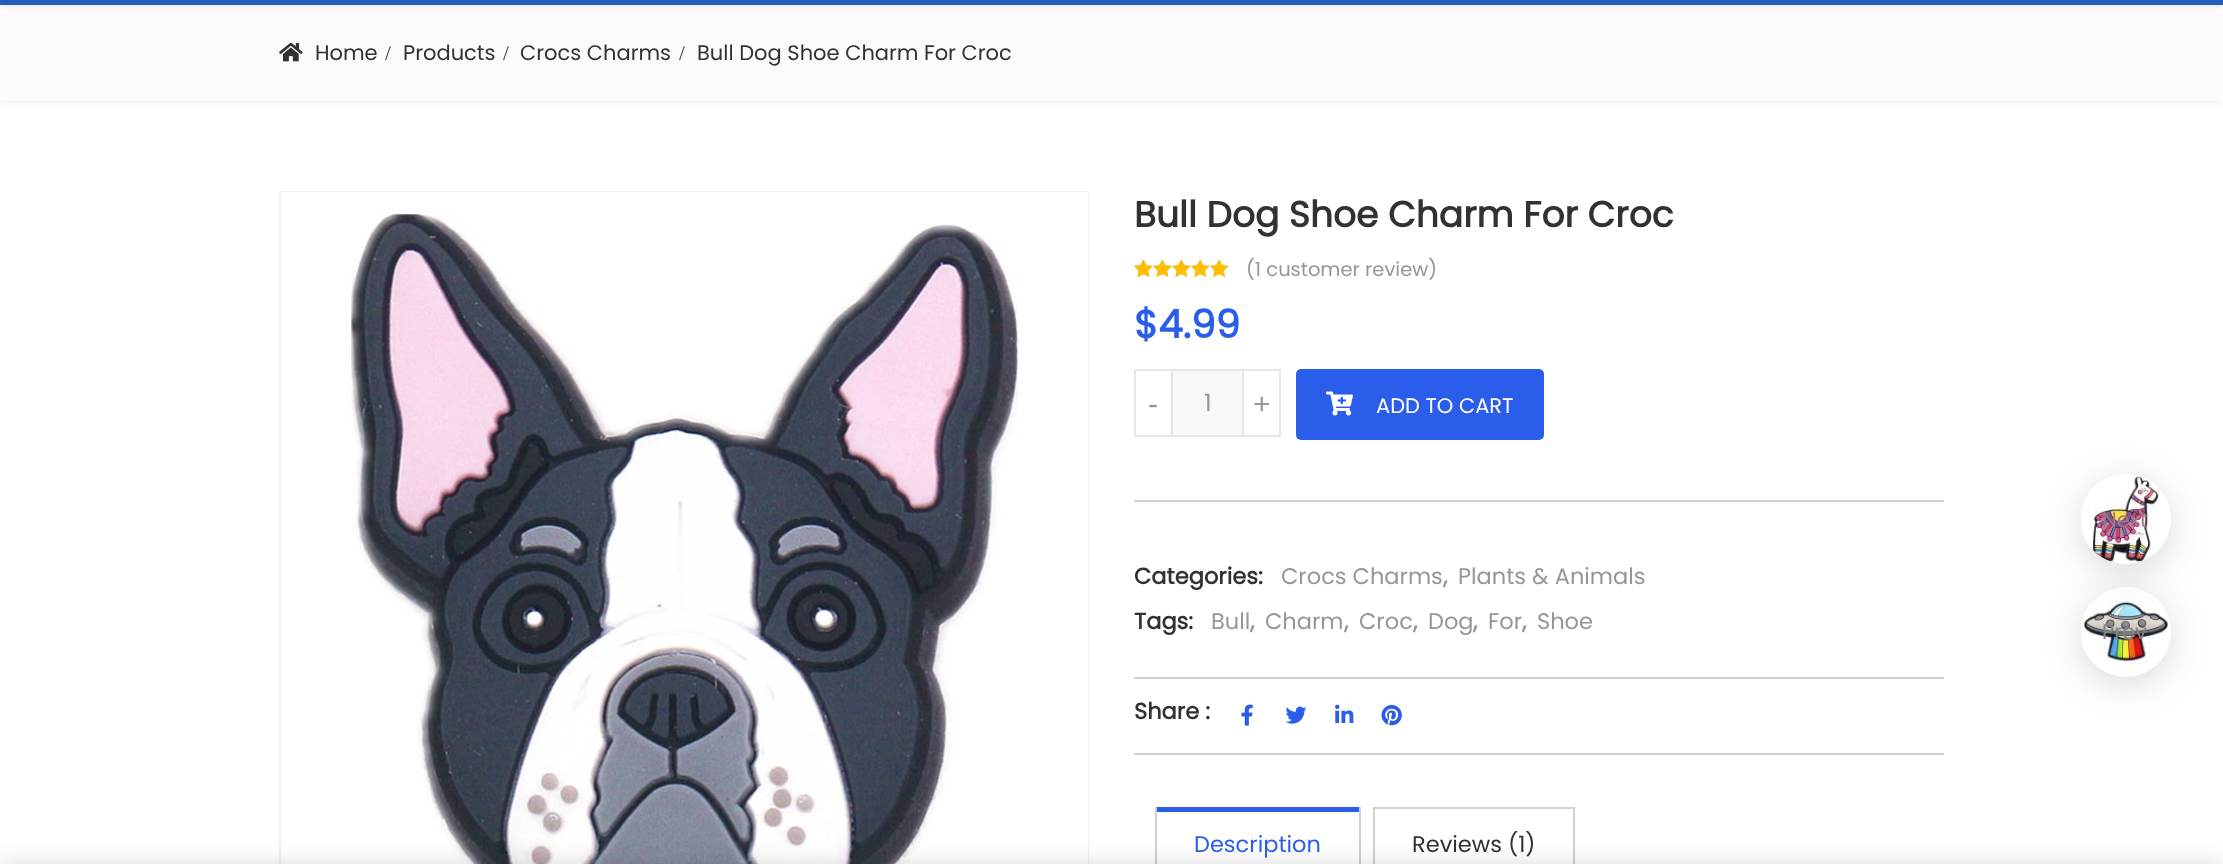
(async () => {
const canvas = document.querySelector("canvas")
canvas.width = 2223
canvas.height = 864
const c = canvas.getContext("2d")
c.miterLimit = 4
c.fontKerning = "normal"
function T(s,x,y){c.fillText(s,x,y)}
function R(x,y,w,h){c.fillRect(x,y,w,h)}
function Q(x,y,w,h,r){c.beginPath();c.roundRect(x,y,w,h,r);c.fill()}
async function I(src,x,y,w,h){const img=new Image();img.src=src;await img.decode();c.drawImage(img,x,y,w,h)}
c.fillStyle="#fff"
R(0,0,2223,864)
c.fillStyle="#0000000a"
c.filter="blur(2px)"
c.beginPath()
c.rect(0,8,2223,96)
c.fill()
c.filter="none"
c.fillStyle="#fbfbfb"
R(0,5,2223,96)
c.fillStyle="#0000000d"
c.filter="blur(2px)"
c.beginPath()
c.rect(0,-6,2223,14)
c.fill()
c.filter="none"
c.fillStyle="#225eb9"
R(0,0,2223,5)
await I("1.png",279,42,24,20)
c.font="21px Poppins"
c.fillStyle="#323232"
T("Home",315,60)
c.font="21px Liberation Serif"
T("/",385,60)
c.font="21px Poppins"
T("Products",403,60)
c.font="21px Liberation Serif"
T("/",503,60)
c.font="21px Poppins"
T("Crocs Charms",520,60)
c.font="21px Liberation Serif"
T("/",679,60)
c.font="21px Poppins"
T("Bull Dog Shoe Charm For Croc",697,60)
c.strokeStyle="#f2f2f2"
c.lineWidth=2
c.strokeRect(280,192,808,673)
await I("2.png",281,192,807,672)
c.font="bold 36px Poppins"
T("Bull Dog Shoe Charm For Croc",1134,227)
await I("3.png",1134,260,95,17)
await I("4.png",1134,260,95,17)
await I("5.png",1134,260,9,17)
c.font="19.5px Poppins"
c.fillStyle="#969696"
T("(1 customer review)",1246,276)
c.font="bold 39px Poppins"
c.fillStyle="#2a5dea"
T("$4.99",1134,338)
c.fillStyle="#f8f8f8"
R(1173,371,69,64)
c.strokeStyle="#e6e6e6"
c.strokeRect(1171,370,73,66)
c.font="24px Poppins"
c.fillStyle="#969696"
T("1",1204,411)
c.fillStyle="#fff"
R(1170,371,1,64)
c.strokeRect(1135,370,37,66)
c.font="30px Liberation Sans"
c.fillStyle="#969696"
T("-",1148,414)
c.fillStyle="#fff"
R(1244,371,1,64)
c.strokeRect(1243,370,37,66)
c.fillStyle="#969696"
T("+",1253,414)
c.fillStyle="#2a5dea"
Q(1296,369,248,71,5)
await I("6.png",1326,391,27,25)
c.font="21px Poppins"
c.fillStyle="#fff"
T("ADD TO CART",1376,413)
c.fillStyle="#d3ced2"
R(1134,500,810,2)
c.font="bold 22.5px Poppins"
c.fillStyle="#323232"
T("Categories:",1134,584)
c.font="22.5px Poppins"
c.fillStyle="#969696"
T("Crocs Charms",1281,584)
c.font="bold 22.5px Poppins"
T(",",1443,584)
c.font="22.5px Poppins"
T("Plants & Animals",1458,584)
c.font="bold 22.5px Poppins"
c.fillStyle="#323232"
T("Tags:",1134,629)
c.font="22.5px Poppins"
c.fillStyle="#969696"
T("Bull",1211,629)
c.font="bold 22.5px Poppins"
T(",",1250,629)
c.font="22.5px Poppins"
T("Charm",1265,629)
c.font="bold 22.5px Poppins"
T(",",1344,629)
c.font="22.5px Poppins"
T("Croc",1359,629)
c.font="bold 22.5px Poppins"
T(",",1413,629)
c.font="22.5px Poppins"
T("Dog",1428,629)
c.font="bold 22.5px Poppins"
T(",",1473,629)
c.font="22.5px Poppins"
T("For",1488,629)
c.font="bold 22.5px Poppins"
T(",",1522,629)
c.font="22.5px Poppins"
T("Shoe",1537,629)
c.fillStyle="#d3ced2"
R(1134,677,810,2)
R(1134,753,810,2)
c.font="bold 22.5px Poppins"
c.fillStyle="#323232"
T("Share :",1134,719)
await I("7.png",1241,704,12,22)
await I("8.png",1285,706,22,18)
await I("9.png",1335,704,19,19)
await I("10.png",1381,705,21,21)
c.fillStyle="#d3ced2"
R(1359,807,2,57)
R(1155,807,2,57)
c.strokeStyle="#d3ced2"
c.strokeRect(1374,808,200,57)
c.fillStyle="#0000001a"
c.filter="blur(10px)"
c.beginPath()
c.rect(0,860,2223,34)
c.fill()
c.filter="none"
c.fillStyle="#2a5dea"
R(1157,807,202,5)
c.font="22.5px Poppins"
T("Description",1194,852)
c.fillStyle="#323232"
T("Reviews (1)",1412,852)
c.fillStyle="#00000026"
c.filter="blur(19px)"
c.beginPath()
c.roundRect(2081,594,90,90,45)
c.fill()
c.filter="none"
c.fillStyle="#fff"
c.beginPath()
c.arc(2126,632,45,0,7)
c.fill()
await I("12.png",2081,601,88,63)
c.fillStyle="#00000026"
c.filter="blur(19px)"
c.beginPath()
c.roundRect(2081,482,90,90,45)
c.fill()
c.filter="none"
c.fillStyle="#fff"
c.beginPath()
c.arc(2126,519,45,0,7)
c.fill()
await I("11.png",2081,475,79,88)
c.font="21px Poppins"
c.fillStyle="#a37886"
T("Next",2102,527)
c.fillStyle="#858585"
T("Prev",2102,639)
})()
